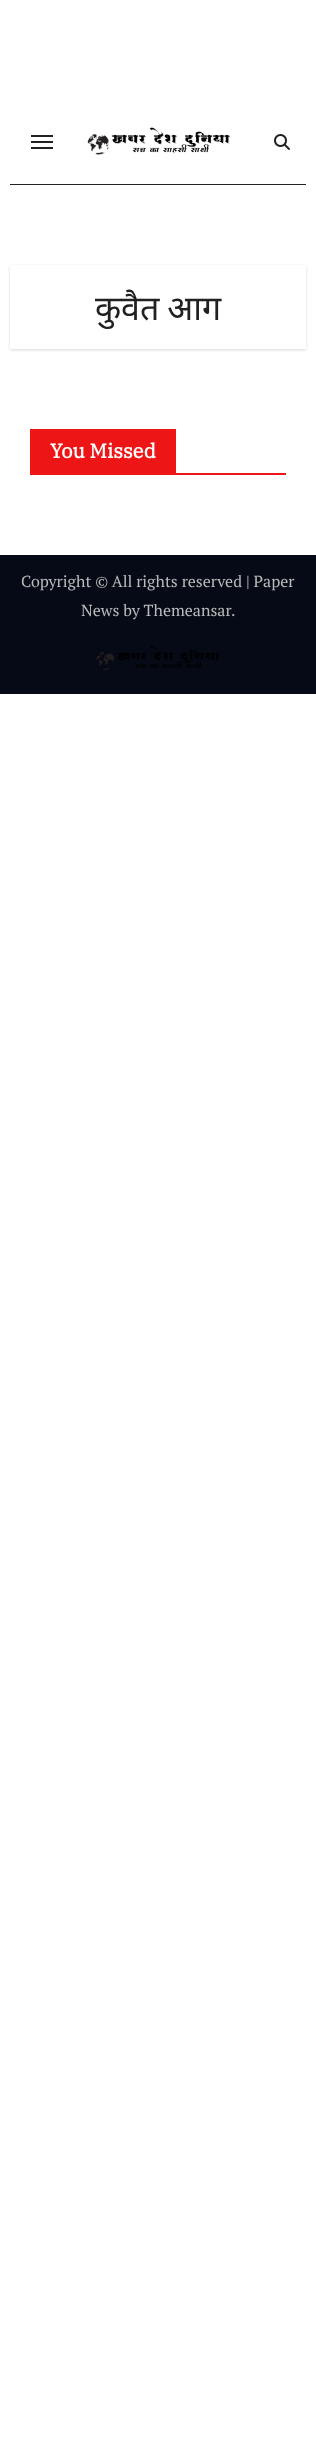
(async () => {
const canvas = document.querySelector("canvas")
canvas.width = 316
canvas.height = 2456
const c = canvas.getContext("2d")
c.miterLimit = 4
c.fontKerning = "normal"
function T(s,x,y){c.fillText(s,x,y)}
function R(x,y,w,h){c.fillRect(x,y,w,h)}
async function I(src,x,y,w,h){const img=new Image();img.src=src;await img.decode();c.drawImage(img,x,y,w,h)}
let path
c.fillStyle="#fff"
R(0,0,316,2456)
c.fillStyle="#212121"
R(10,184,296,1)
R(31,135,22,2)
R(31,141,22,2)
R(31,147,22,2)
await I("1.png",87,127,143,28)
await I("2.png",274,134,16,16)
c.save()
path = new Path2D("M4 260h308v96h-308zm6 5h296v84h-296z")
c.clip(path,"evenodd")
c.fillStyle="#00000026"
c.filter="blur(1.5px)"
c.beginPath()
c.rect(10,266,296,84)
c.fill()
c.filter="none"
c.restore()
c.wordSpacing="-1px"
c.font="34px Noto Sans"
T("कुवैत आग",95,320)
c.fillStyle="#ed1515"
R(30,473,256,2)
R(30,429,146,44)
c.wordSpacing="0px"
c.font="bold 20px IBM Plex Serif"
c.fillStyle="#fff"
T("You Missed",50,458)
c.fillStyle="#060a16"
R(0,555,316,139)
c.font="16px PT Serif"
c.fillStyle="#bbb"
T("Copyright © All rights reserved | Paper",21,587)
T("News by Themeansar",81,616)
T(".",231,616)
await I("3.png",96,646,123,24)
})()
